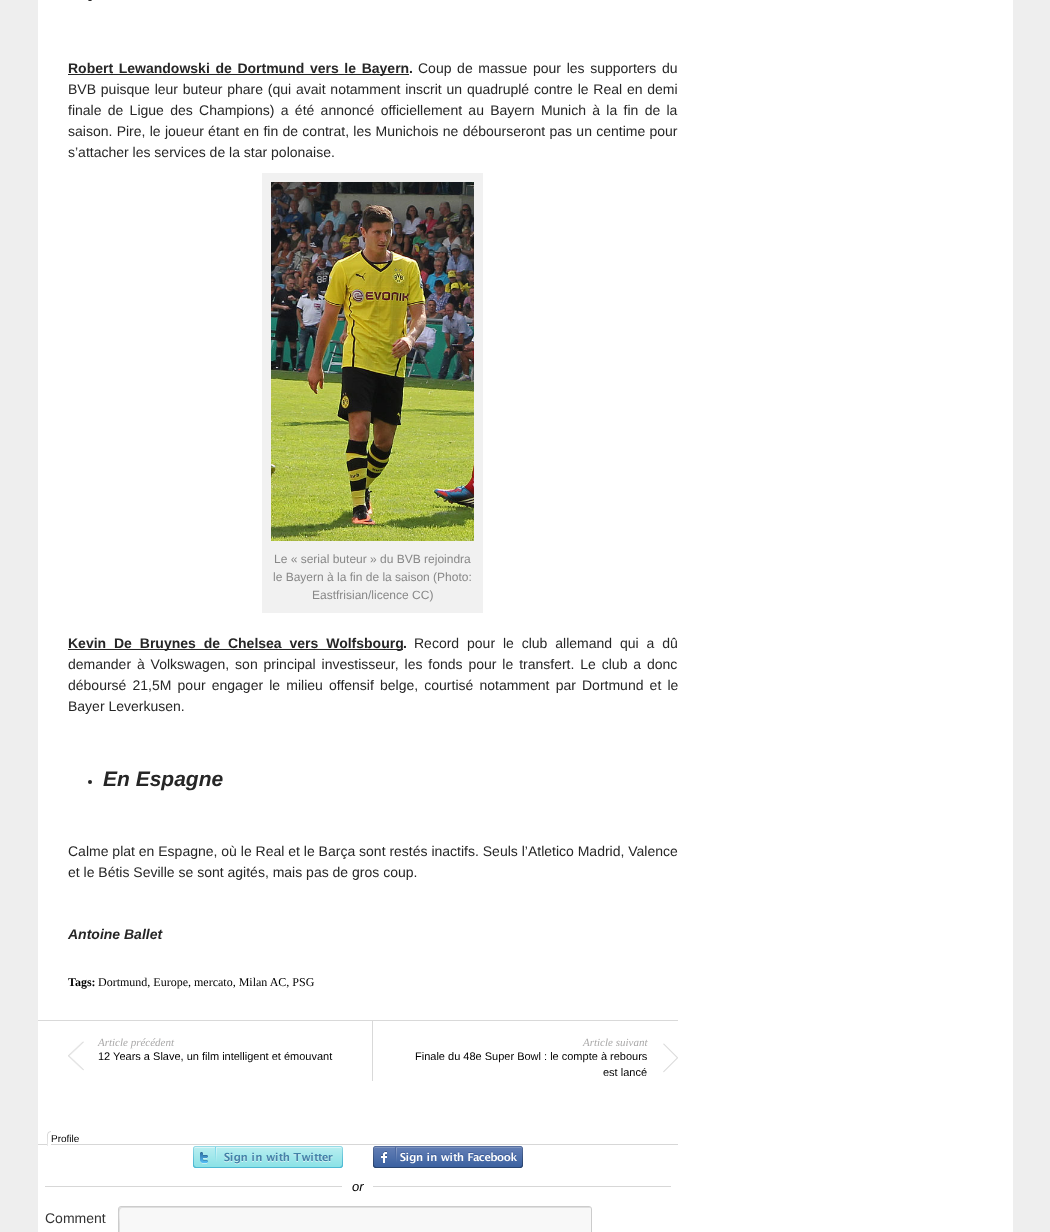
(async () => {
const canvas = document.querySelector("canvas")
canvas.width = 1050
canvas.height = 1232
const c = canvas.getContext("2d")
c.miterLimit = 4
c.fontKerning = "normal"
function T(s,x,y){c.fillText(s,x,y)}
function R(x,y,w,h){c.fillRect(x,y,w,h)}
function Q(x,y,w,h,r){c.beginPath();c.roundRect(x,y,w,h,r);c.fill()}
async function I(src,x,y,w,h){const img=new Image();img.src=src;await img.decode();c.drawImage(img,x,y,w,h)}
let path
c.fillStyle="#eee"
R(0,0,1050,1232)
c.fillStyle="#fff"
R(38,0,975,1232)
c.fillStyle="#d9d9d9"
R(38,1020,640,1)
c.fillStyle="#262626"
Q(88,-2,4,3,2)
R(68,74,341,1)
c.wordSpacing="1.75px"
c.font="bold 14px Liberation Sans"
T("Robert Lewandowski de Dortmund vers le Bayern",68,73)
c.wordSpacing="0px"
T(".",409,73)
c.wordSpacing="1.75px"
c.font="14px Liberation Sans"
T("Coup de massue pour les supporters du",418,73)
c.wordSpacing="0.9px"
T("BVB puisque leur buteur phare (qui avait notamment inscrit un quadruplé contre le Real en demi",68,94)
c.wordSpacing="2.4px"
T("finale de Ligue des Champions) a été annoncé officiellement au Bayern Munich à la fin de la",68,115)
c.wordSpacing="0.4px"
T("saison. Pire, le joueur étant en fin de contrat, les Munichois ne débourseront pas un centime pour",68,136)
c.wordSpacing="0px"
T("s’attacher les services de la star polonaise.",68,157)
c.fillStyle="#f1f1f1"
R(262,173,221,440)
await I("1.png",271,182,203,359)
c.font="12px Liberation Sans"
c.fillStyle="#888"
T("Le « serial buteur » du BVB rejoindra",274,563)
T("le Bayern à la fin de la saison (Photo:",273,581)
T("Eastfrisian/licence CC)",312,599)
c.fillStyle="#262626"
R(68,649,335,1)
c.wordSpacing="4px"
c.font="bold 14px Liberation Sans"
T("Kevin De Bruynes de Chelsea vers Wolfsbourg",68,648)
c.wordSpacing="0px"
T(".",403,648)
c.wordSpacing="4px"
c.font="14px Liberation Sans"
T("Record pour le club allemand qui a dû",414,648)
c.wordSpacing="2px"
T("demander à Volkswagen, son principal investisseur, les fonds pour le transfert. Le club a donc",68,669)
c.wordSpacing="2.25px"
T("déboursé 21,5M pour engager le milieu offensif belge, courtisé notamment par Dortmund et le",68,690)
c.wordSpacing="0px"
T("Bayer Leverkusen.",68,711)
c.beginPath()
c.arc(90,782,2,0,7)
c.fill()
c.font="italic bold 21px Liberation Sans"
T("En Espagne",103,786)
c.font="14px Liberation Sans"
T("Calme plat en Espagne, où le Real et le Barça sont restés inactifs. Seuls l’Atletico Madrid, Valence",68,856)
T("et le Bétis Seville se sont agités, mais pas de gros coup.",68,877)
c.font="italic bold 14px Liberation Sans"
T("Antoine Ballet",68,939)
c.font="bold 12px Liberation Serif"
c.fillStyle="#000"
T("Tags:",68,986)
c.font="12px Liberation Serif"
T("Dortmund, Europe, mercato, Milan AC, PSG",98,986)
await I("2.png",68,1041,16,30)
c.font="italic 11px Liberation Serif"
c.fillStyle="#aaa9a9"
T("Article précédent",98,1046)
c.font="11px Liberation Sans"
c.fillStyle="#000"
T("12 Years a Slave, un film intelligent et émouvant",98,1060)
c.fillStyle="#d9d9d9"
R(372,1021,1,60)
await I("3.png",663,1043,15,30)
c.font="italic 11px Liberation Serif"
c.fillStyle="#aaa9a9"
T("Article suivant",583,1046)
c.font="11px Liberation Sans"
c.fillStyle="#000"
T("Finale du 48e Super Bowl : le compte à rebours",415,1060)
T("est lancé",603,1076)
await I("4.png",38,1131,640,15)
c.font="10px Liberation Sans"
T("Profile",51,1142)
await I("5.png",193,1146,150,22)
await I("6.png",373,1146,150,22)
c.fillStyle="#d7d7d7"
R(45,1186,626,1)
c.fillStyle="#fff"
R(342,1186,31,1)
c.font="italic 13px Liberation Sans"
c.fillStyle="#000"
T("or",352,1191)
c.font="14px Liberation Sans"
c.fillStyle="#333"
T("Comment",45,1223)
c.fillStyle="#f8f8f8"
Q(119,1207,472,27,2)
c.fillStyle="#dfdfdf"
path = new Path2D("M122 1208h469c0 0-1-1-2-1h-468c-1 0-2 1-2 2v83c0 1 1 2 1 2v-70c0-4-2-16 2-16z")
c.fill(path)
c.beginPath()
c.roundRect(118.5,1206.5,473,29,2.5)
c.strokeStyle="#ccc"
c.stroke()
})()
